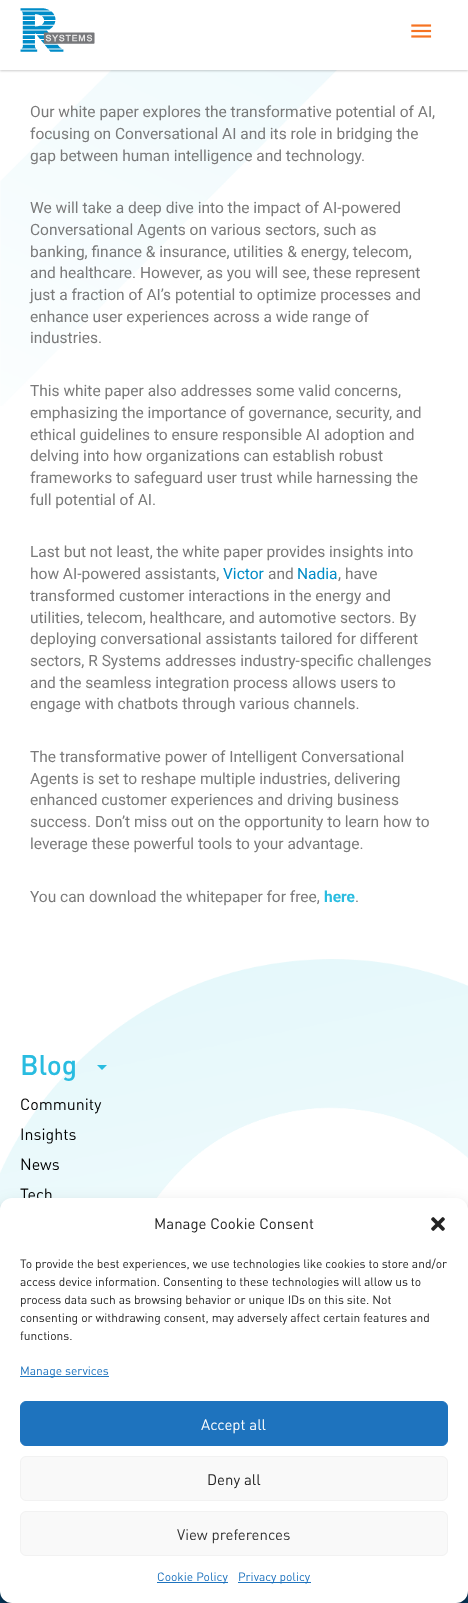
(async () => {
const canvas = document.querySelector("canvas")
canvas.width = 468
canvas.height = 1603
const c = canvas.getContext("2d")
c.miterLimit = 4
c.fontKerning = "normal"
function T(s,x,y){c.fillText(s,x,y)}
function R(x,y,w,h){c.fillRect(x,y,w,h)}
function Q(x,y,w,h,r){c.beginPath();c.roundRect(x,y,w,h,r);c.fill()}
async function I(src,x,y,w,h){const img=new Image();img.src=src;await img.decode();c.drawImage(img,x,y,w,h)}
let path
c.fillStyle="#fff"
R(0,0,468,1603)
await I("3.png",0,70,337,336)
c.fillStyle="#00000033"
c.filter="blur(1px)"
c.beginPath()
c.rect(0,1,468,70)
c.fill()
c.filter="none"
c.fillStyle="#fff"
R(0,0,468,70)
await I("1.png",20,8,75,44)
await I("2.png",411,24,21,14)
c.font="15.5px Roboto"
c.fillStyle="#7a7a7a"
T("Our white paper explores the transformative potential of AI,",30,117)
T("focusing on Conversational AI and its role in bridging the",30,139)
T("gap between human intelligence and technology.",30,161)
T("We will take a deep dive into the impact of AI-powered",30,213)
T("Conversational Agents on various sectors, such as",30,235)
T("banking, finance & insurance, utilities & energy, telecom,",30,257)
T("and healthcare. However, as you will see, these represent",30,278)
T("just a fraction of AI’s potential to optimize processes and",30,300)
T("enhance user experiences across a wide range of",30,322)
T("industries.",30,343)
T("This white paper also addresses some valid concerns,",30,396)
T("emphasizing the importance of governance, security, and",30,418)
T("ethical guidelines to ensure responsible AI adoption and",30,440)
T("delving into how organizations can establish robust",30,461)
T("frameworks to safeguard user trust while harnessing the",30,483)
T("full potential of AI.",30,505)
T("Last but not least, the white paper provides insights into",30,557)
T("how AI-powered assistants,",30,579)
c.fillStyle="#008bc6"
T("Victor",223,579)
c.fillStyle="#7a7a7a"
T("and",268,579)
c.fillStyle="#008bc6"
T("Nadia",297,579)
c.fillStyle="#7a7a7a"
T(", have",338,579)
T("transformed customer interactions in the energy and",30,601)
T("utilities, telecom, healthcare, and automotive sectors. By",30,623)
T("deploying conversational assistants tailored for different",30,644)
T("sectors, R Systems addresses industry-specific challenges",30,666)
T("and the seamless integration process allows users to",30,688)
T("engage with chatbots through various channels.",30,709)
T("The transformative power of Intelligent Conversational",30,762)
T("Agents is set to reshape multiple industries, delivering",30,784)
T("enhanced customer experiences and driving business",30,805)
T("success. Don’t miss out on the opportunity to learn how to",30,827)
T("leverage these powerful tools to your advantage.",30,849)
T("You can download the whitepaper for free,",30,902)
c.font="bold 15.5px Roboto"
c.fillStyle="#29bce0"
T("here",324,902)
c.font="15.5px Roboto"
c.fillStyle="#7a7a7a"
T(".",355,902)
await I("4.png",0,959,468,251)
c.font="500 28px DIN"
c.fillStyle="#29bce0"
T("Blog",20,1075)
path = new Path2D("M97 1065h10l-5 5z")
c.fill(path)
c.font="16px DIN"
c.fillStyle="#000"
T("Community",20,1110)
T("Insights",20,1140)
T("News",20,1170)
T("Tech",20,1200)
c.fillStyle="#063d65"
R(0,1591,468,12)
c.fillStyle="#0000003b"
c.filter="blur(3px)"
c.beginPath()
c.roundRect(0,1204,468,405,12)
c.fill()
c.filter="none"
c.fillStyle="#00000030"
c.filter="blur(10px)"
c.beginPath()
c.roundRect(0,1208,468,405,12)
c.fill()
c.filter="none"
c.fillStyle="#fff"
Q(0,1198,468,405,12)
c.font="15px DIN"
c.fillStyle="#222"
T("Manage Cookie Consent",154,1229)
await I("5.png",431,1217,14,14)
c.font="12px DIN"
T("To provide the best experiences, we use technologies like cookies to store and/or",20,1268)
T("access device information. Consenting to these technologies will allow us to",20,1286)
T("process data such as browsing behavior or unique IDs on this site. Not",20,1304)
T("consenting or withdrawing consent, may adversely affect certain features and",20,1322)
T("functions.",20,1340)
c.fillStyle="#1e73be"
R(20,1376,89,1)
T("Manage services",20,1375)
c.beginPath()
c.roundRect(20.5,1401.5,427,44,5.5)
c.fill()
c.strokeStyle="#1e73be"
c.stroke()
c.font="15px DIN"
c.fillStyle="#fff"
T("Accept all",201,1430)
c.fillStyle="#f9f9f9"
c.beginPath()
c.roundRect(20.5,1456.5,427,44,5.5)
c.fill()
c.strokeStyle="#f2f2f2"
c.stroke()
c.fillStyle="#222"
T("Deny all",207,1485)
c.fillStyle="#f9f9f9"
c.beginPath()
c.roundRect(20.5,1511.5,427,44,5.5)
c.fill()
c.stroke()
c.fillStyle="#333"
T("View preferences",177,1540)
c.fillStyle="#1e73be"
R(157,1582,71,1)
c.font="12px DIN"
T("Cookie Policy",157,1581)
R(238,1582,73,1)
T("Privacy policy",238,1581)
})()
